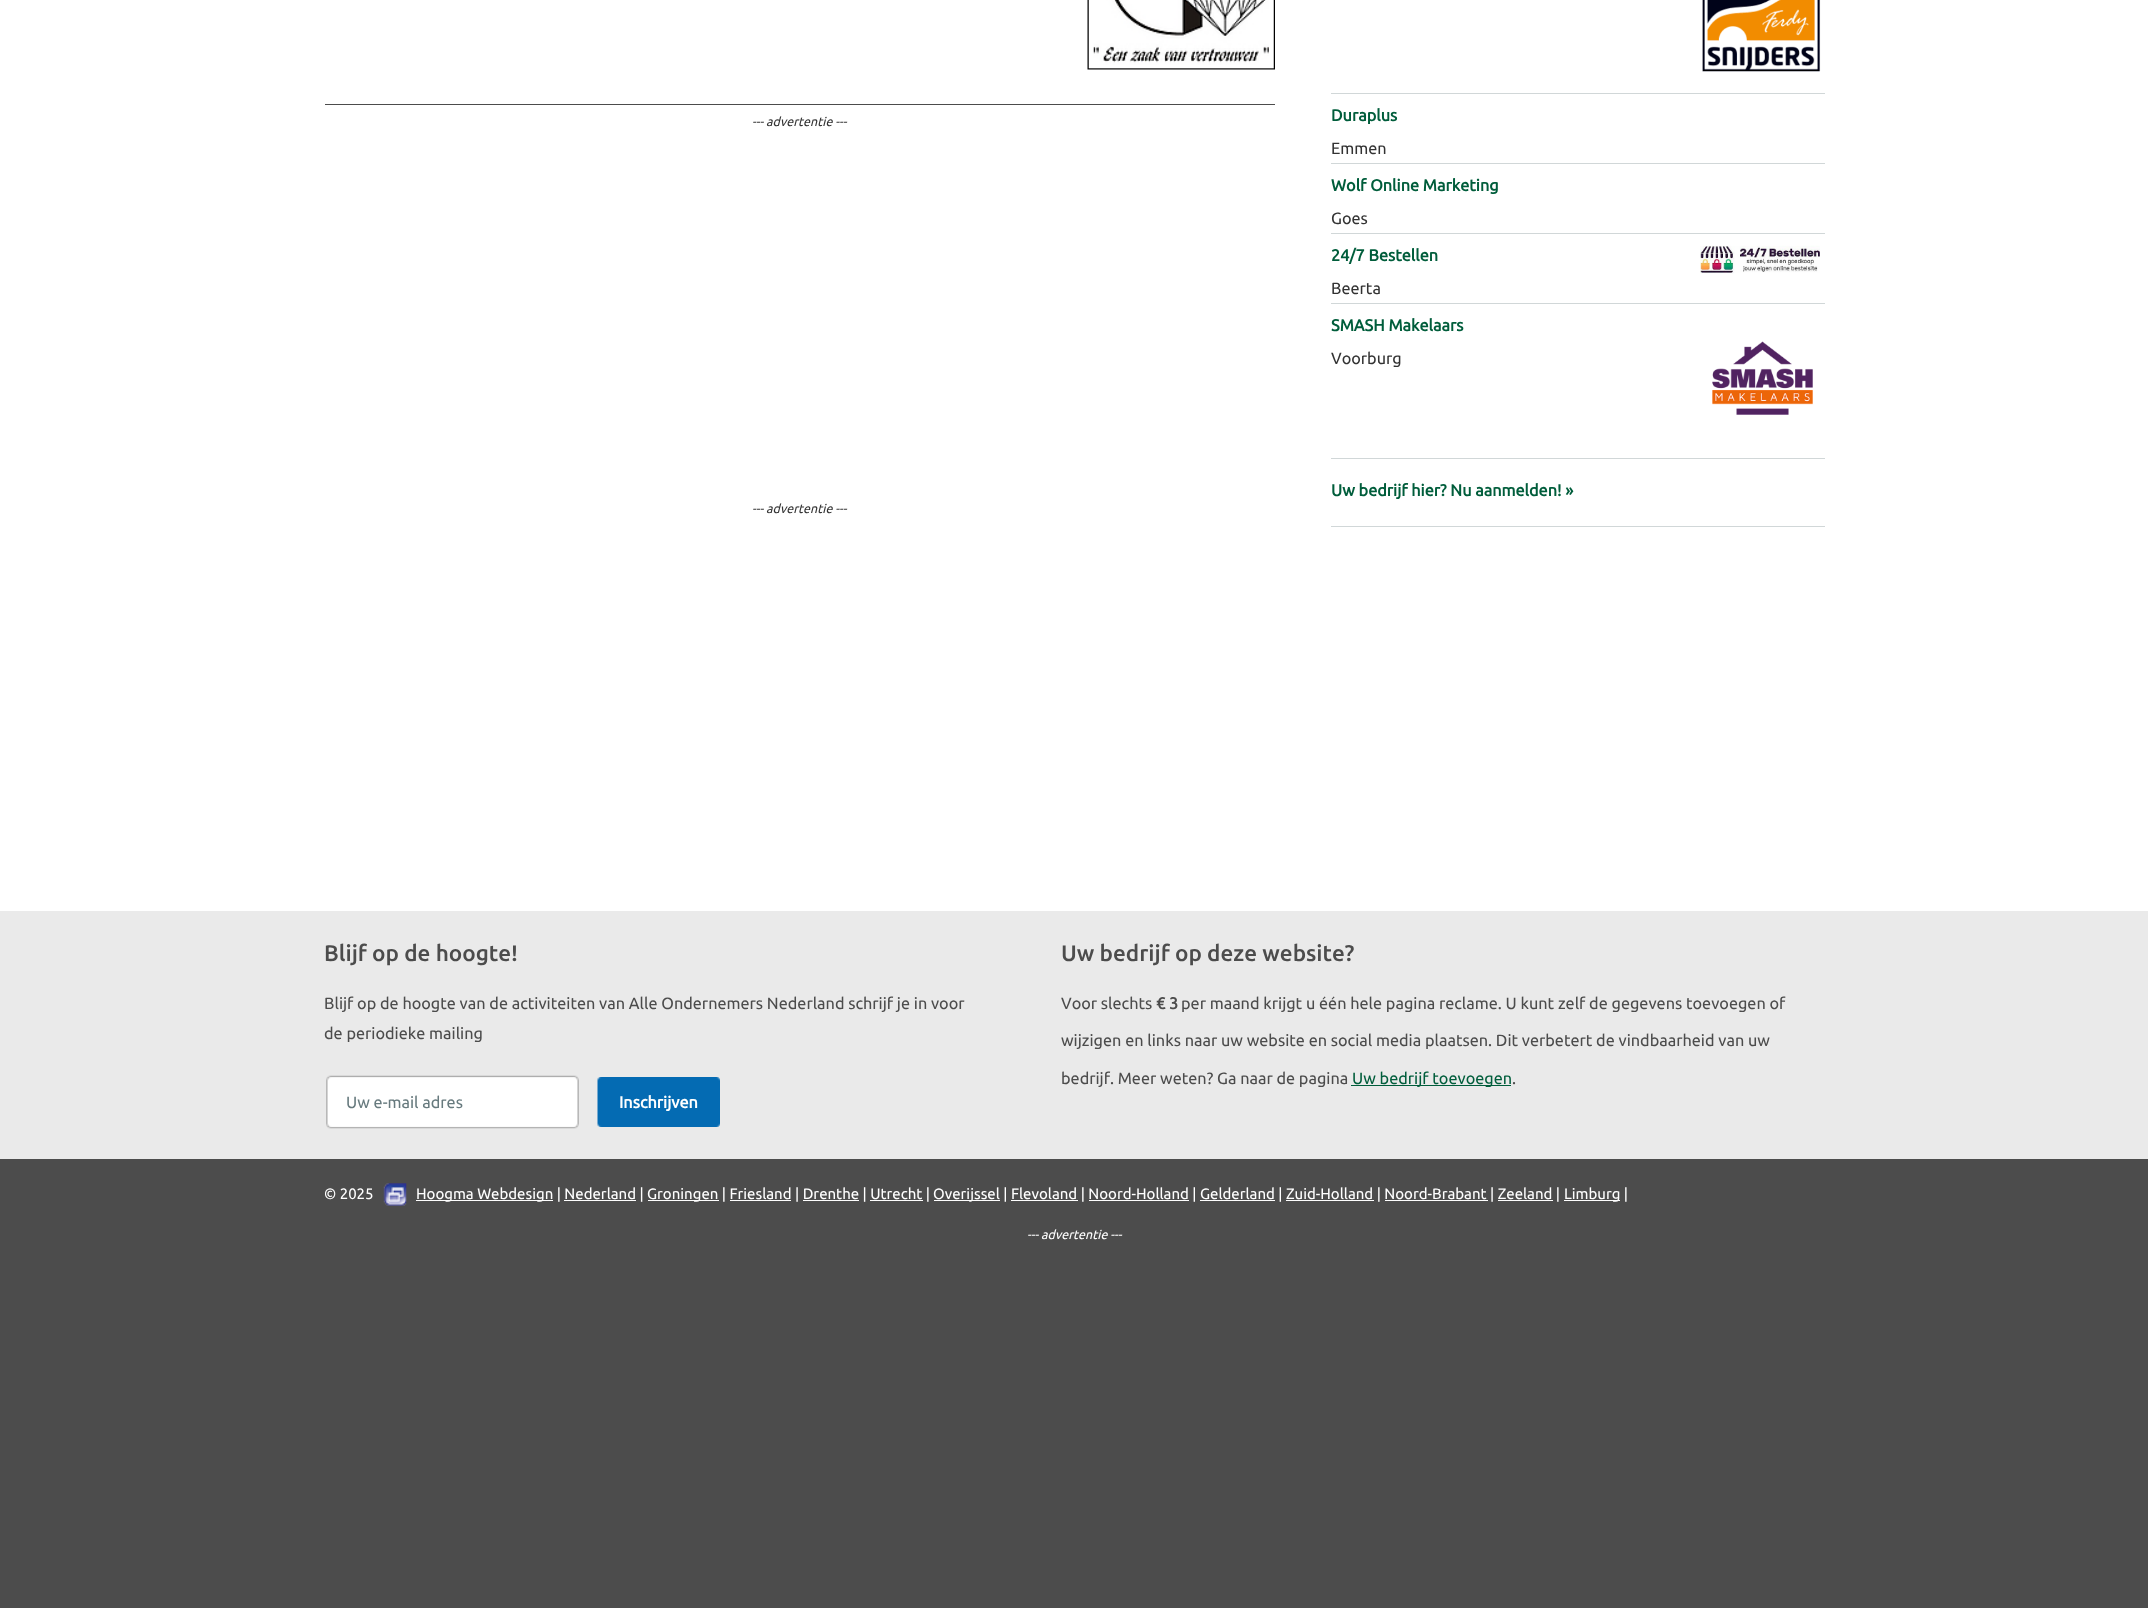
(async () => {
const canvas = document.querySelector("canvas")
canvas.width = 2148
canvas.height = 1608
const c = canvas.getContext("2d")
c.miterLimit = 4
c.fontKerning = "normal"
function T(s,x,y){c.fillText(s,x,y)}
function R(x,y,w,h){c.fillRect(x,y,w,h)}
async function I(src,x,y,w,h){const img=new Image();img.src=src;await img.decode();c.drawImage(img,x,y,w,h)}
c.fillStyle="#fff"
R(0,0,2148,1608)
c.fillStyle="#4c4c4c"
R(325,104,950,1)
await I("1.png",1087,0,188,70)
c.font="italic 12.5px Ubuntu"
c.fillStyle="#333"
T("--- advertentie ---",752,126)
T("--- advertentie ---",752,513)
c.fillStyle="#d1d7d8"
R(1331,93,494,1)
await I("2.png",1702,0,119,72)
R(1331,163,494,1)
c.font="bold 16.25px Ubuntu"
c.fillStyle="#005d3b"
T("Duraplus",1331,121)
c.font="16.25px Ubuntu"
c.fillStyle="#333"
T("Emmen",1331,154)
c.fillStyle="#d1d7d8"
R(1331,233,494,1)
c.font="bold 16.25px Ubuntu"
c.fillStyle="#005d3b"
T("Wolf Online Marketing",1331,191)
c.font="16.25px Ubuntu"
c.fillStyle="#333"
T("Goes",1331,224)
c.fillStyle="#d1d7d8"
R(1331,303,494,1)
c.font="bold 16.25px Ubuntu"
c.fillStyle="#005d3b"
T("24/7 Bestellen",1331,261)
await I("3.png",1700,245,120,29)
c.font="16.25px Ubuntu"
c.fillStyle="#333"
T("Beerta",1331,294)
c.fillStyle="#d1d7d8"
R(1331,458,494,1)
c.font="bold 16.25px Ubuntu"
c.fillStyle="#005d3b"
T("SMASH Makelaars",1331,331)
c.font="16.25px Ubuntu"
c.fillStyle="#333"
T("Voorburg",1331,364)
await I("4.png",1712,341,101,74)
c.fillStyle="#d1d7d8"
R(1331,526,494,1)
c.font="bold 16.25px Ubuntu"
c.fillStyle="#005d3b"
T("Uw bedrijf hier? Nu aanmelden! »",1331,496)
c.fillStyle="#eaeaea"
R(0,911,2148,248)
c.font="500 22.5px Ubuntu"
c.fillStyle="#4c4c4c"
T("Blijf op de hoogte!",324,961)
c.font="16.25px Ubuntu"
T("Blijf op de hoogte van de activiteiten van Alle Ondernemers Nederland schrijf je in voor",324,1009)
T("de periodieke mailing",324,1039)
await I("5.png",326,1075,253,54)
c.fillStyle="#677a7e"
T("Uw e-mail adres",346,1108)
await I("6.png",597,1077,123,50)
c.font="bold 16.25px Ubuntu"
c.fillStyle="#fff"
T("Inschrijven",619,1108)
c.font="500 22.5px Ubuntu"
c.fillStyle="#4c4c4c"
T("Uw bedrijf op deze website?",1061,961)
c.font="16.25px Ubuntu"
T("Voor slechts",1061,1009)
c.font="bold 16.25px Ubuntu"
T("€ 3",1156,1009)
c.font="16.25px Ubuntu"
T("per maand krijgt u één hele pagina reclame. U kunt zelf de gegevens toevoegen of",1181,1009)
T("wijzigen en links naar uw website en social media plaatsen. Dit verbetert de vindbaarheid van uw",1061,1046)
T("bedrijf. Meer weten? Ga naar de pagina",1061,1084)
c.fillStyle="#005d3b"
R(1351,1085,160,1)
T("Uw bedrijf toevoegen",1352,1084)
c.fillStyle="#4c4c4c"
T(".",1512,1084)
R(0,1159,2148,449)
c.font="15px Ubuntu"
c.fillStyle="#fff"
T("© 2025",324,1199)
await I("7.png",383,1183,24,23)
R(416,1200,137,1)
T("Hoogma Webdesign | Nederland |",416,1199)
R(648,1200,71,1)
T("Groningen | Friesland | Drenthe | Utrecht |",647,1199)
R(934,1200,66,1)
T("Overijssel | Flevoland | Noord-Holland | Gelderland | Zuid-Holland | Noord-Brabant | Zeeland |",933,1199)
R(1564,1200,56,1)
T("Limburg |",1564,1199)
R(564,1200,72,1)
R(730,1200,61,1)
R(803,1200,56,1)
R(870,1200,53,1)
R(1011,1200,67,1)
R(1089,1200,100,1)
R(1200,1200,75,1)
R(1286,1200,88,1)
R(1385,1200,103,1)
R(1498,1200,55,1)
c.font="italic 12.5px Ubuntu"
T("--- advertentie ---",1027,1239)
})()
